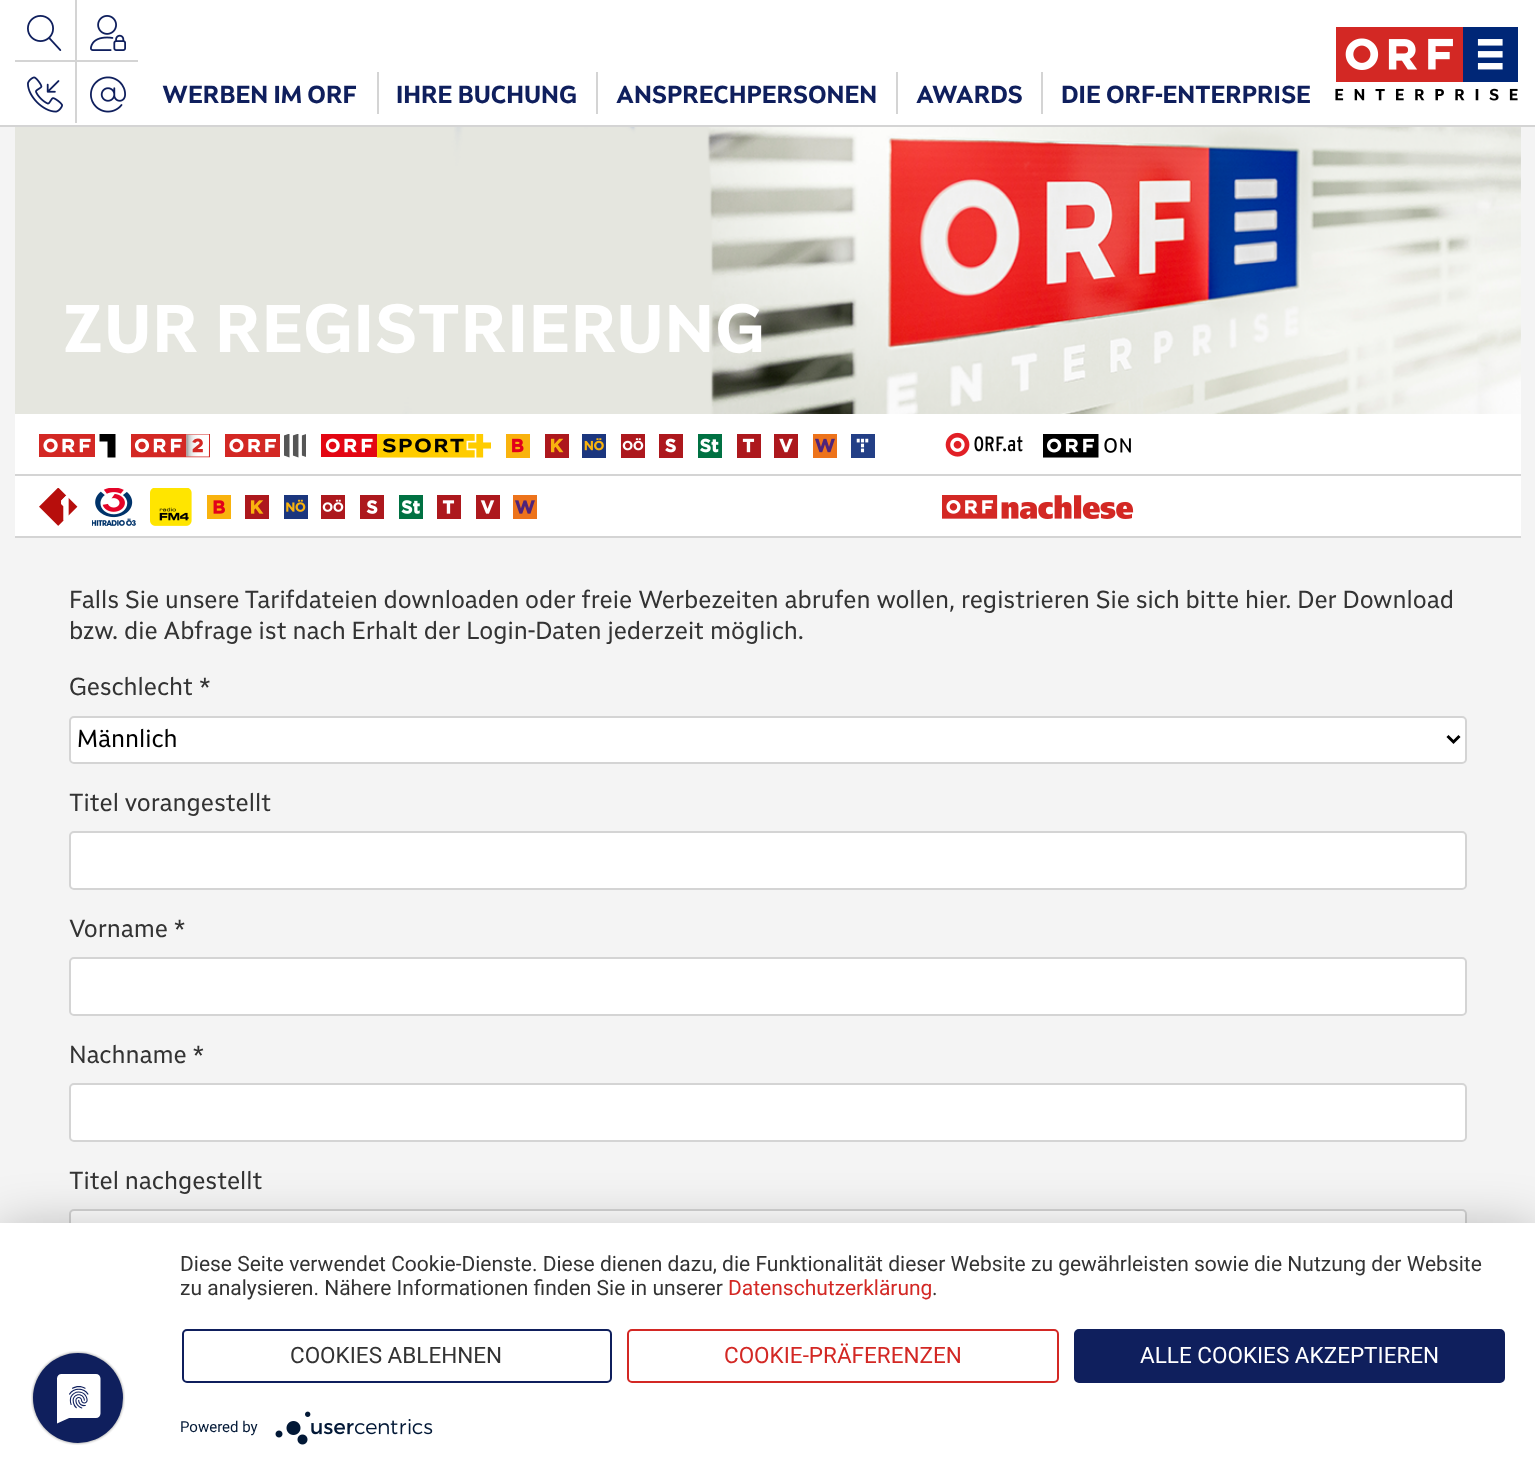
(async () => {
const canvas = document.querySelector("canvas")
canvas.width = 1535
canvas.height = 1475
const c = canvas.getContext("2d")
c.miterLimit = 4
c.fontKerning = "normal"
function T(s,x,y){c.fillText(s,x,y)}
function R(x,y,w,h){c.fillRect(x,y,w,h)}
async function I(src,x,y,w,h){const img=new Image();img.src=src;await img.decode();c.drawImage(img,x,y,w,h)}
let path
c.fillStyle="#f4f4f4"
R(0,0,1535,1475)
c.fillStyle="#fff"
R(0,0,1535,125)
c.fillStyle="#d4d4d4"
R(0,125,1535,2)
R(75,0,2,123)
R(15,60,123,2)
await I("1.png",27,15,35,36)
await I("2.png",90,15,36,36)
await I("3.png",27,76,36,37)
await I("4.png",90,76,36,37)
c.font="bold 24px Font"
c.fillStyle="#0f1f5d"
T("WERBEN IM ORF",162,103)
c.fillStyle="#d4d4d4"
R(377,72,2,42)
c.fillStyle="#0f1f5d"
T("IHRE BUCHUNG",396,103)
c.fillStyle="#d4d4d4"
R(596,72,2,42)
c.fillStyle="#0f1f5d"
T("ANSPRECHPERSONEN",616,103)
c.fillStyle="#d4d4d4"
R(896,72,2,42)
c.fillStyle="#0f1f5d"
T("AWARDS",916,103)
c.fillStyle="#d4d4d4"
R(1041,72,2,42)
c.fillStyle="#0f1f5d"
T("DIE ORF-ENTERPRISE",1061,103)
await I("5.png",1335,27,183,74)
await I("6.png",15,127,1506,287)
c.letterSpacing="1.25px"
c.font="bold 66px Font"
c.fillStyle="#fff"
T("ZUR REGISTRIERUNG",63,352)
R(15,414,1506,60)
c.fillStyle="#d4d4d4"
R(15,474,1506,2)
await I("7.png",39,434,77,24)
await I("8.png",131,434,79,24)
await I("9.png",225,434,81,24)
await I("10.png",321,434,170,24)
await I("11.png",506,434,24,24)
await I("12.png",545,434,24,24)
await I("13.png",582,434,24,24)
await I("14.png",621,434,24,24)
await I("15.png",659,434,24,24)
await I("16.png",698,434,24,24)
await I("17.png",737,434,24,24)
await I("18.png",774,434,24,24)
await I("19.png",813,434,24,24)
await I("20.png",851,434,24,24)
await I("21.png",945,432,78,25)
await I("22.png",1043,434,88,24)
c.fillStyle="#fff"
R(15,476,1506,60)
c.fillStyle="#d4d4d4"
R(15,536,1506,2)
await I("23.png",39,488,39,38)
await I("24.png",92,488,44,38)
await I("25.png",150,488,42,38)
await I("26.png",207,495,24,24)
await I("27.png",245,495,24,24)
await I("28.png",284,495,24,24)
await I("29.png",321,495,24,24)
await I("30.png",360,495,24,24)
await I("31.png",399,495,24,24)
await I("32.png",437,495,24,24)
await I("33.png",476,495,24,24)
await I("34.png",513,495,24,24)
await I("35.png",942,495,192,24)
c.letterSpacing="0px"
c.font="24px Font"
c.fillStyle="#333"
T("Falls Sie unsere Tarifdateien downloaden oder freie Werbezeiten abrufen wollen, registrieren Sie sich bitte hier. Der Download",69,608)
T("bzw. die Abfrage ist nach Erhalt der Login-Daten jederzeit möglich.",69,639)
T("Geschlecht *",69,695)
c.fillStyle="#fff"
c.beginPath()
c.roundRect(70,717,1396,46,4)
c.fill()
c.strokeStyle="#d4d4d4"
c.lineWidth=2
c.stroke()
path = new Path2D("M1447.5 736l6 6l6-6")
c.strokeStyle="#000"
c.lineWidth=3
c.stroke(path)
c.fillStyle="#000"
T("Männlich",77,747)
c.fillStyle="#333"
T("Titel vorangestellt",69,811)
c.fillStyle="#fff"
c.beginPath()
c.roundRect(70,832,1396,57,4)
c.fill()
c.strokeStyle="#d4d4d4"
c.lineWidth=2
c.stroke()
c.fillStyle="#333"
T("Vorname *",69,937)
c.fillStyle="#fff"
c.beginPath()
c.roundRect(70,958,1396,57,4)
c.fill()
c.stroke()
c.fillStyle="#333"
T("Nachname *",69,1063)
c.fillStyle="#fff"
c.beginPath()
c.roundRect(70,1084,1396,57,4)
c.fill()
c.stroke()
c.fillStyle="#333"
T("Titel nachgestellt",69,1189)
c.fillStyle="#fff"
c.beginPath()
c.roundRect(70,1210,1396,57,4)
c.fill()
c.stroke()
c.fillStyle="#0000004d"
c.filter="blur(27px)"
c.beginPath()
c.rect(0,1232,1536,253)
c.fill()
c.filter="none"
c.fillStyle="#fff"
R(0,1223,1535,252)
await I("36.png",31,1351,94,94)
c.font="21px Roboto"
c.fillStyle="#333"
T("Diese Seite verwendet Cookie-Dienste. Diese dienen dazu, die Funktionalität dieser Website zu gewährleisten sowie die Nutzung der Website",180,1271)
T("zu analysieren. Nähere Informationen finden Sie in unserer",180,1295)
c.fillStyle="#d32824"
T("Datenschutzerklärung",728,1295)
c.fillStyle="#333"
T(".",932,1295)
c.beginPath()
c.roundRect(183,1330,428,52,4)
c.strokeStyle="#0f1f5d"
c.stroke()
c.font="22.5px Roboto"
T("COOKIES ABLEHNEN",290,1363)
c.beginPath()
c.roundRect(628,1330,430,52,4)
c.strokeStyle="#d32824"
c.stroke()
c.fillStyle="#d32824"
T("COOKIE-PRÄFERENZEN",724,1363)
c.fillStyle="#0f1f5d"
c.beginPath()
c.roundRect(1075,1330,429,52,4)
c.fill()
c.strokeStyle="#0f1f5d"
c.stroke()
c.fillStyle="#fff"
T("ALLE COOKIES AKZEPTIEREN",1140,1363)
c.font="15px Roboto"
c.fillStyle="#021836"
T("Powered by",180,1432)
await I("37.png",275,1411,158,34)
})()
